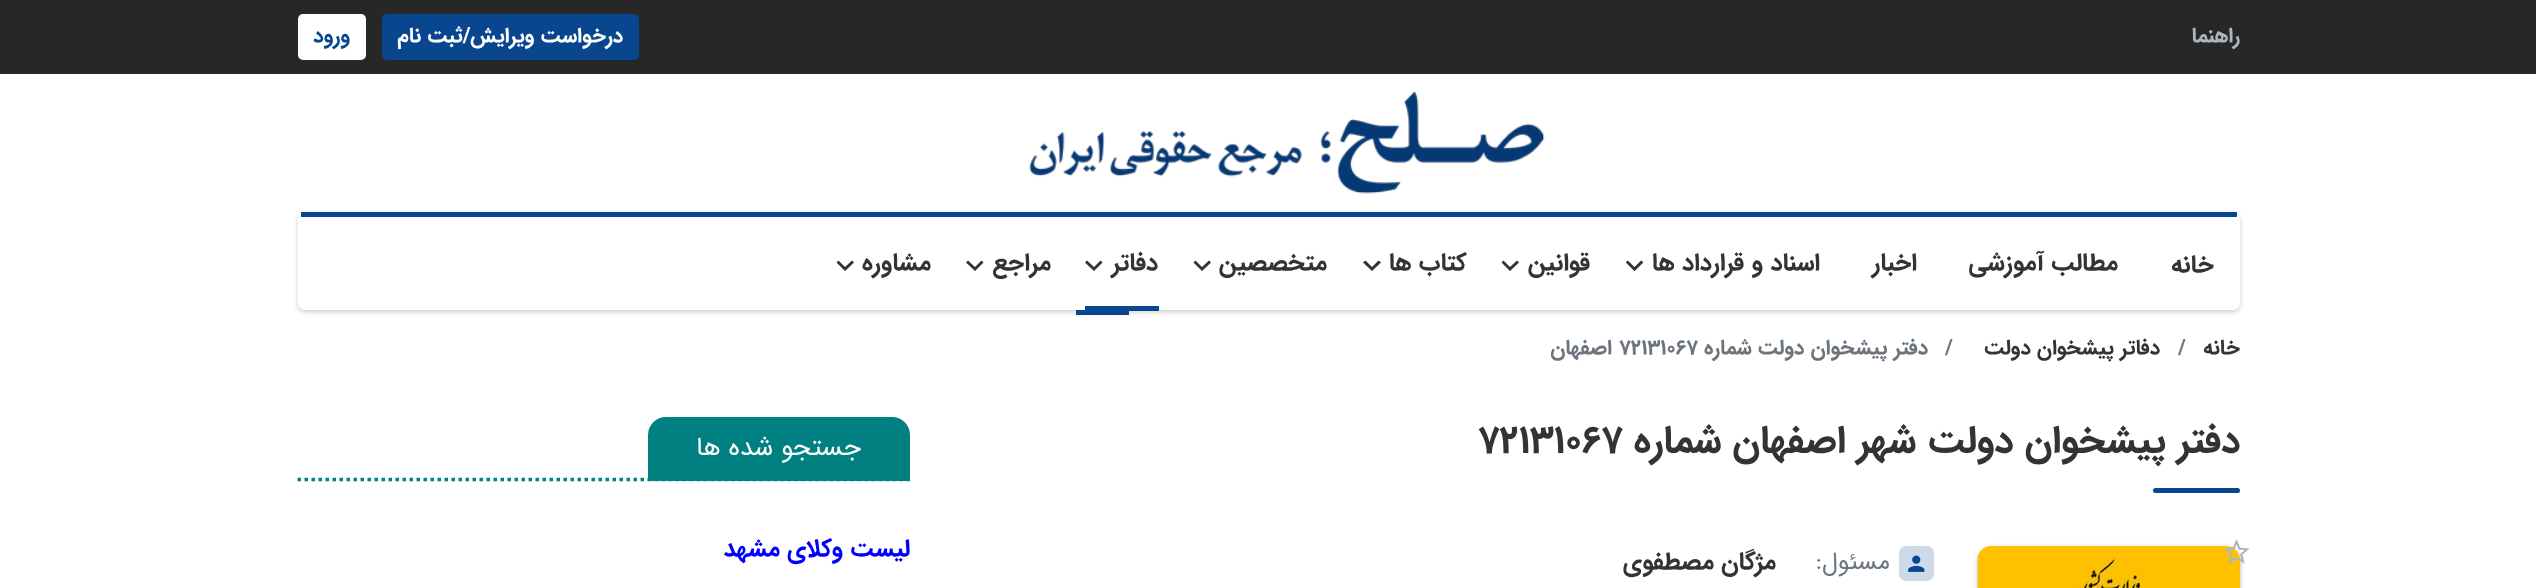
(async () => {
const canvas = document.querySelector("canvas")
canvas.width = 2536
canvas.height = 588
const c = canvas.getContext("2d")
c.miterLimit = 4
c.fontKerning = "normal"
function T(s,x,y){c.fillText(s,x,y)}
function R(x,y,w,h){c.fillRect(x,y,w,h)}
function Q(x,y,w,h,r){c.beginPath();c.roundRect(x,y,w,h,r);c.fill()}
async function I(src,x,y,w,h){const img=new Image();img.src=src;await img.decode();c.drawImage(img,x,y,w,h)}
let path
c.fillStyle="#fff"
R(0,0,2536,588)
c.fillStyle="#272727"
R(0,0,2536,74)
c.direction="rtl"
c.font="bold 21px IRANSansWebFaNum"
c.fillStyle="#adb5bd"
T("راهنما",2240,42)
c.fillStyle="#08478f"
Q(382,14,257,46,5)
c.fillStyle="#fff"
T("درخواست ویرایش/ثبت نام",623,42)
Q(298,14,68,46,5)
c.fillStyle="#08478f"
T("ورود",350,42)
await I("1.png",1029,91,516,103)
c.fillStyle="#00000033"
c.filter="blur(2.5px)"
c.beginPath()
c.roundRect(298,214,1942,98,7)
c.fill()
c.filter="none"
c.fillStyle="#fff"
Q(298,212,1942,98,7)
c.fillStyle="#08478f"
R(301,212,1936,5)
c.font="bold 24.5px IRANSansWebFaNum"
c.fillStyle="#333"
T("خانه",2214,272)
T("مطالب آموزشی",2118,270)
T("اخبار",1917,270)
T("اسناد و قرارداد ها",1820,270)
await I("2.png",1625,260,19,12)
T("قوانین",1590,270)
path = new Path2D("M1503.5 260.5l6.5 6.5l7-6.5l2 2l-9 8.5l-8.5-8.5z")
c.fill(path)
T("کتاب ها",1467,270)
path = new Path2D("M1365.5 260.5l6.5 6.5l6.5-6.5l2.5 2l-9 8.5l-9-8.5z")
c.fill(path)
T("متخصصین",1327,270)
path = new Path2D("M1195.5 260.5l6.5 6.5l7-6.5l2 2l-9 8.5l-8.5-8.5z")
c.fill(path)
c.fillStyle="#08478f"
R(1085,306,74,5)
R(1076,310,53,5)
c.fillStyle="#333"
T("دفاتر",1158,270)
path = new Path2D("M1087 260.5l7 6.5l6.5-6.5l2 2l-8.5 8.5l-9-8.5z")
c.fill(path)
T("مراجع",1051,270)
path = new Path2D("M968 260.5l7 6.5l6.5-6.5l2 2l-8.5 8.5l-9-8.5z")
c.fill(path)
T("مشاوره",931,270)
path = new Path2D("M838.5 260.5l6.5 6.5l7-6.5l2 2l-9 8.5l-8.5-8.5z")
c.fill(path)
c.font="bold 21px IRANSansWebFaNum"
T("خانه",2240,354)
c.direction="ltr"
c.fillStyle="#6c757d"
T("/",2178,354)
c.direction="rtl"
c.fillStyle="#333"
T("دفاتر پیشخوان دولت",2160,354)
c.direction="ltr"
c.fillStyle="#6c757d"
T("/",1945,354)
c.direction="rtl"
T("دفتر پیشخوان دولت شماره",1928,354)
c.direction="ltr"
T("72131067",1619,354)
c.direction="rtl"
T("اصفهان",1612,354)
c.font="bold 38.5px IRANSansWebFaNum"
c.fillStyle="#333"
T("دفتر پیشخوان دولت",2240,452)
T("شهر اصفهان شماره",1916,452)
c.direction="ltr"
T("72131067",1478,452)
c.fillStyle="#08478f"
Q(2153,488,87,5,2.5)
c.fillStyle="#0000004d"
c.filter="blur(2.5px)"
c.beginPath()
c.roundRect(1978,548,262,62,14)
c.fill()
c.filter="none"
await I("4.png",1977,546,263,42)
await I("3.png",2223,539,27,25)
c.fillStyle="#cedae9"
Q(1899,546,35,35,7)
await I("5.png",1908,555,17,17)
c.direction="rtl"
c.font="24.5px IRANSansWebFaNum"
c.fillStyle="#6c757d"
T("مسئول:",1890,569)
c.font="bold 24.5px IRANSansWebFaNum"
c.fillStyle="#333"
T("مژگان مصطفوی",1776,569)
path = new Path2D("M297.5 479.5h612.5")
c.strokeStyle="#008080"
c.lineWidth=3.5
c.setLineDash([3.5,3.5])
c.stroke(path)
c.fillStyle="#008080"
c.beginPath()
c.roundRect(648,417,262,64,[18,18,0,0])
c.fill()
c.font="26.25px IRANSansWebFaNum"
c.fillStyle="#fff"
T("جستجو شده ها",861,455)
c.font="bold 24.5px IRANSansWebFaNum"
c.fillStyle="#00f"
T("لیست وکلای مشهد",910,556)
})()
